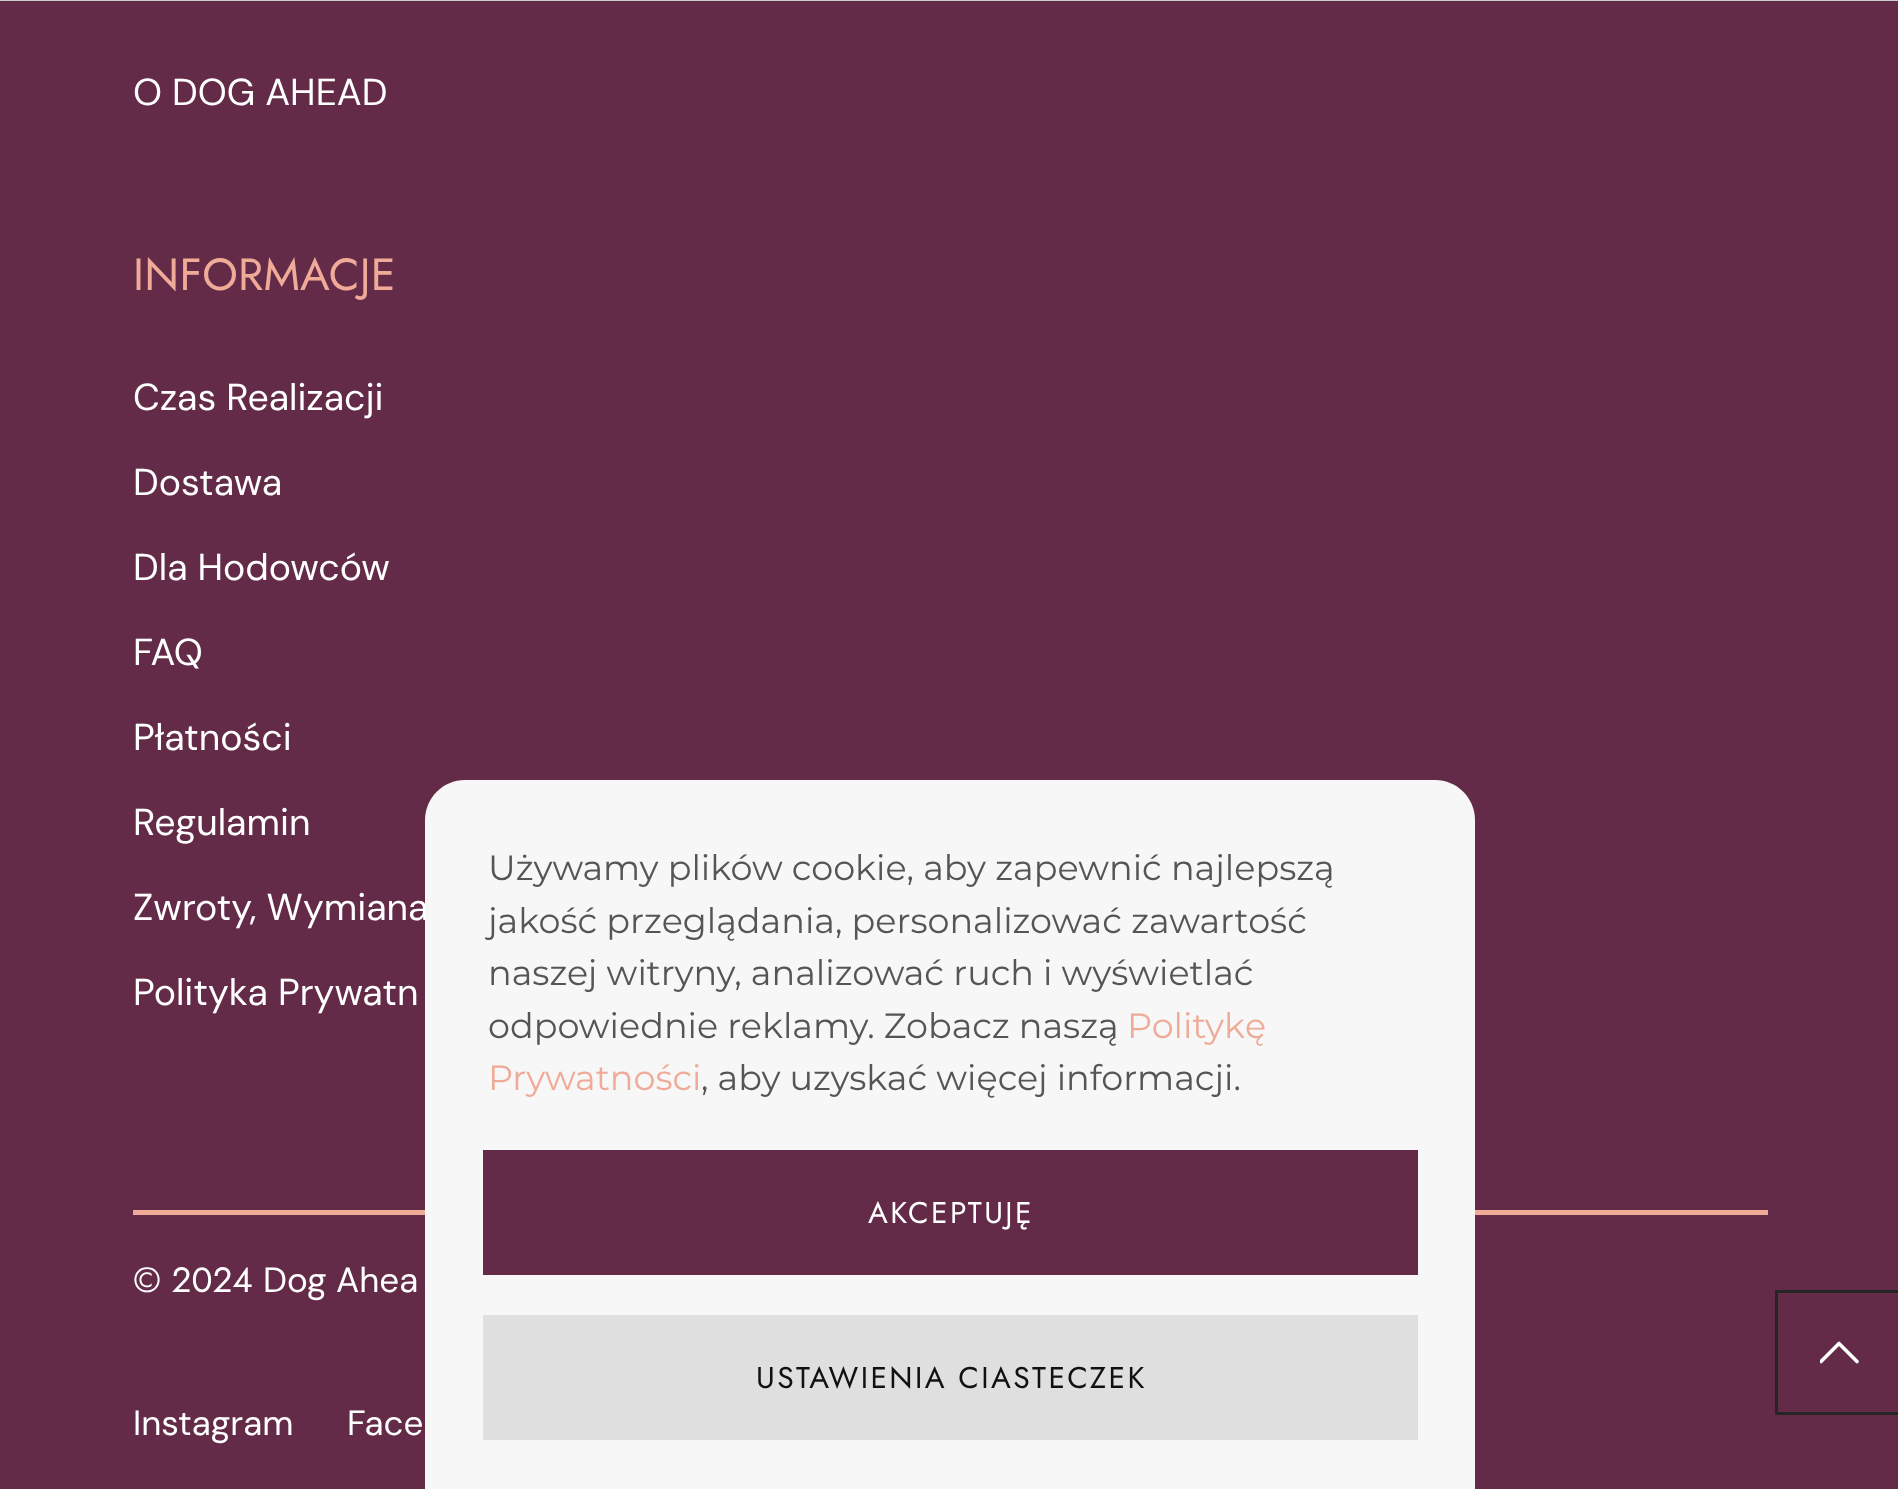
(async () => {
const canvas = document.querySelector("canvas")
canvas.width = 1898
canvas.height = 1489
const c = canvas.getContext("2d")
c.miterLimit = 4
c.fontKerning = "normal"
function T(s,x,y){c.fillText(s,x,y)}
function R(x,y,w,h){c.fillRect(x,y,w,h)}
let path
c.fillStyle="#632b47"
R(0,0,1898,1489)
c.fillStyle="#ccc"
R(0,0,1898,1)
c.font="37.5px DM Sans"
c.fillStyle="#fff"
T("O DOG AHEAD",133,105)
c.letterSpacing="0.25px"
c.font="45px Jost"
c.fillStyle="#efab98"
T("INFORMACJE",133,290)
c.letterSpacing="0px"
c.font="37.5px DM Sans"
c.fillStyle="#fff"
T("Czas Realizacji",133,410)
T("Dostawa",133,495)
T("Dla Hodowców",133,580)
T("FAQ",133,665)
T("Płatności",133,750)
T("Regulamin",133,835)
T("Zwroty, Wymiana",133,920)
T("Polityka Prywatn",133,1005)
c.fillStyle="#efab98"
R(133,1210,1635,5)
c.font="35px Jost"
c.fillStyle="#fff"
T("© 2024",133,1292)
c.font="35px DM Sans"
T("Dog Ahea",263,1292)
T("Instagram",133,1435)
T("Face",347,1435)
c.strokeStyle="#252525"
c.lineWidth=3
c.strokeRect(1776.5,1291.5,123,122)
c.save()
c.beginPath()
c.rect(1820,1293,40,120)
c.clip()
path = new Path2D("M1821 1361.5l18-18l18 18")
c.strokeStyle="#fff"
c.lineWidth=3.6
c.lineCap="round"
c.lineJoin="round"
c.stroke(path)
c.restore()
c.fillStyle="#f7f7f7"
path = new Path2D("M465 780h970c22 0 40 18 40 40v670h-1050v-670c0-22 18-40 40-40z")
c.fill(path)
c.font="35px Montserrat"
c.fillStyle="#555"
T("Używamy plików cookie, aby zapewnić najlepszą",488,880)
T("jakość przeglądania, personalizować zawartość",488,933)
T("naszej witryny, analizować ruch i wyświetlać",488,985)
T("odpowiednie reklamy. Zobacz naszą",488,1038)
c.fillStyle="#efab98"
T("Politykę",1127,1038)
T("Prywatności",488,1090)
c.fillStyle="#555"
T(", aby uzyskać więcej informacji.",701,1090)
c.fillStyle="#632b48"
R(483,1150,935,125)
c.letterSpacing="2.4px"
c.font="30px Jost"
c.fillStyle="#fff"
T("AKCEPTUJĘ",868,1223)
c.fillStyle="#dfdfdf"
R(483,1315,935,125)
c.fillStyle="#111"
T("USTAWIENIA CIASTECZEK",756,1388)
})()
